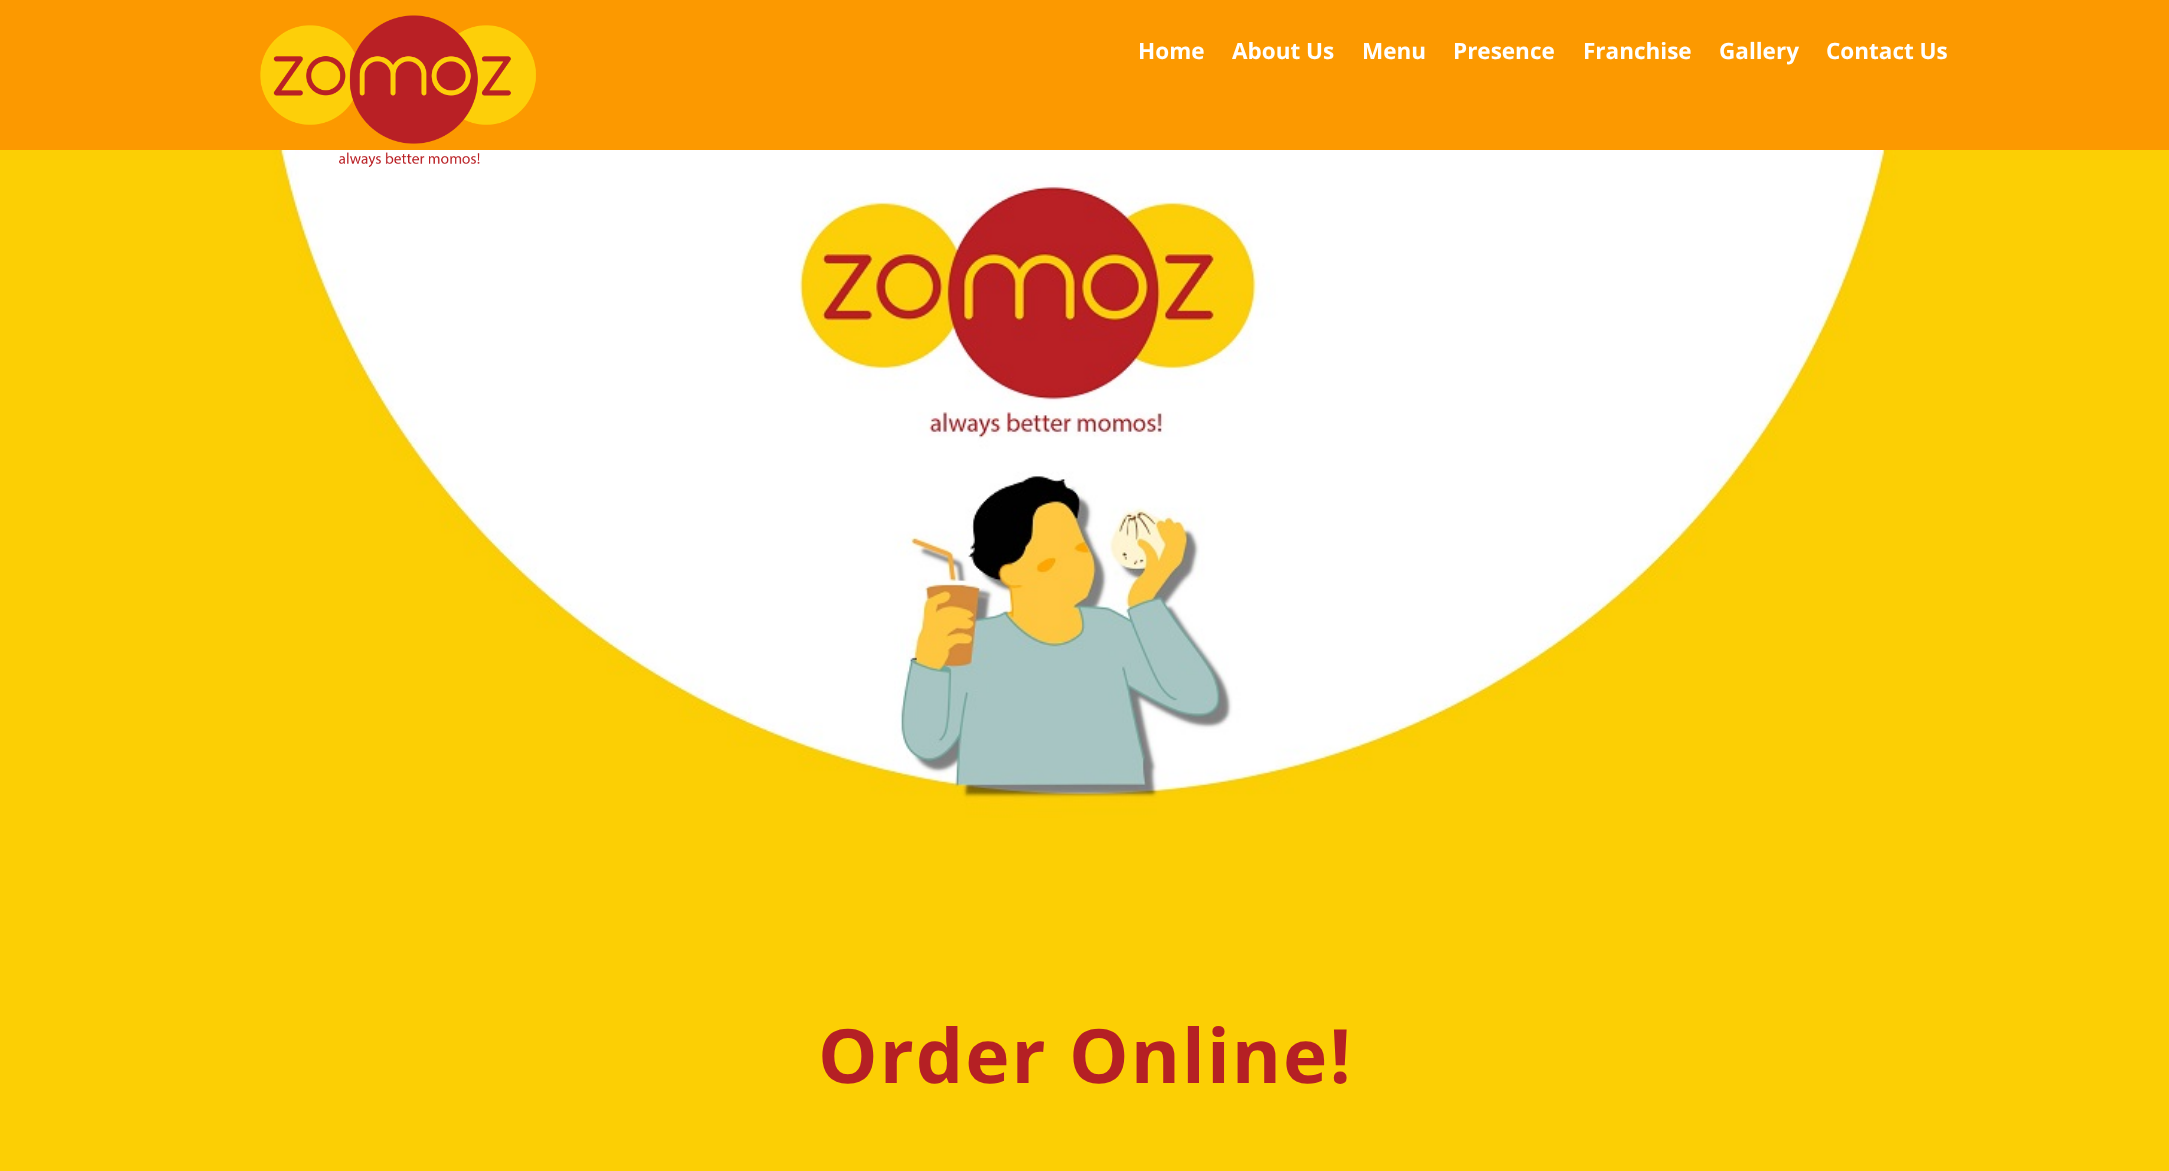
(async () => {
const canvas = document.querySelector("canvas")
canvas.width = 2169
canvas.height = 1171
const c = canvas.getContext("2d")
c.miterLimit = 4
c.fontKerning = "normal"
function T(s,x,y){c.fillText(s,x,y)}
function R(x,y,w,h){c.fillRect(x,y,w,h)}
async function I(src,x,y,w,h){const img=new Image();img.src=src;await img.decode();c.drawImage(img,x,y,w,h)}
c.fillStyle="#fc9900"
R(0,0,2169,1171)
await I("2.png",0,150,2169,1021)
await I("1.png",260,15,276,152)
c.font="bold 22.5px Open Sans"
c.fillStyle="#fff"
T("Home",1138,59)
T("About Us",1232,59)
T("Menu",1362,59)
T("Presence",1453,59)
T("Franchise",1583,59)
T("Gallery",1719,59)
T("Contact Us",1826,59)
c.letterSpacing="2px"
c.font="bold 75px Open Sans"
c.fillStyle="#b52024"
T("Order Online!",818,1083)
})()
